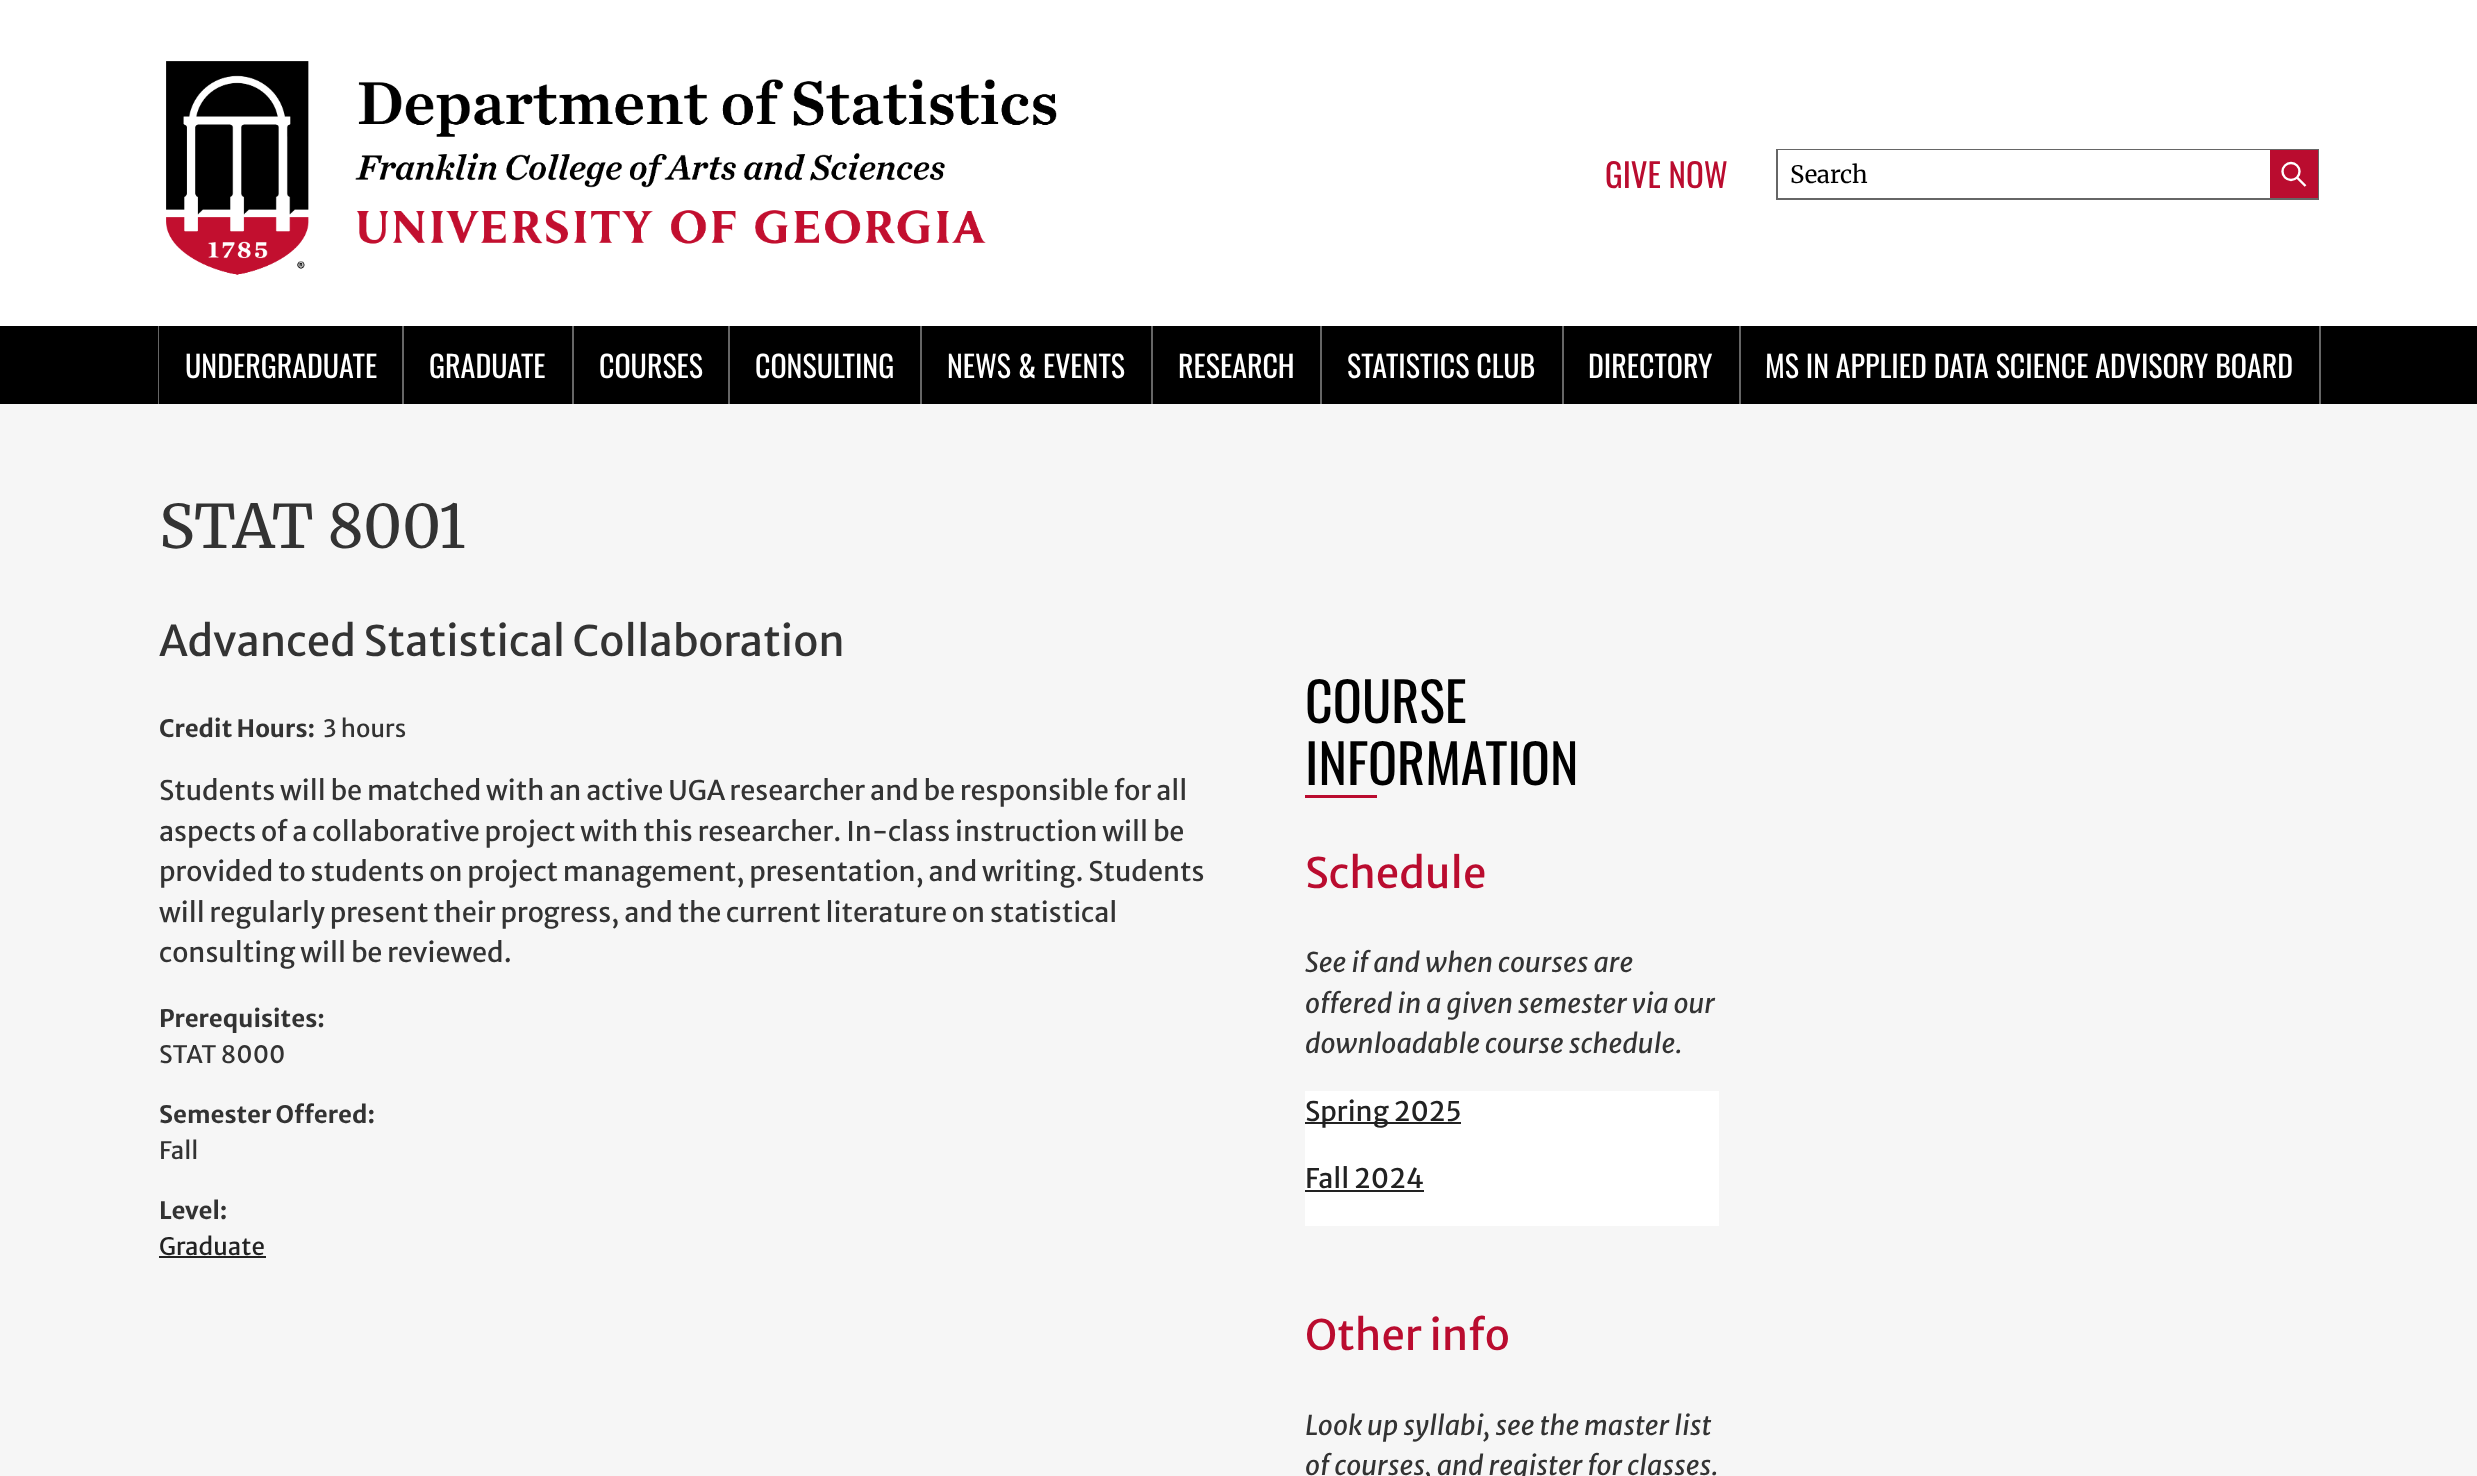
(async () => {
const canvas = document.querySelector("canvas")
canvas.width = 2477
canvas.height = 1476
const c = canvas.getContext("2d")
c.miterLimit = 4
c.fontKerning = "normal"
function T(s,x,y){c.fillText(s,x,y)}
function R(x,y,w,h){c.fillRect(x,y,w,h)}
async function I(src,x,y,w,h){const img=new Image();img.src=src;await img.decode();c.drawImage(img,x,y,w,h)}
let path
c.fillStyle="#fff"
R(0,0,2477,1476)
await I("1.png",166,61,891,214)
c.font="33px Oswald"
c.fillStyle="#ba0c2f"
T("GIVE NOW",1605,188)
c.strokeStyle="#666"
c.lineWidth=2
c.strokeRect(1777,150,541,49)
c.fillStyle="#fff"
R(1778,150,492,1)
c.font="300 24px Merriweather"
c.fillStyle="#000"
T("Search",1790,183)
c.fillStyle="#ba0c2f"
R(2270,150,48,48)
c.beginPath()
c.arc(2291,171.5,8.5,0,7)
c.strokeStyle="#fff"
c.lineWidth=2.4
c.stroke()
path = new Path2D("M2297 177.5l8.5 8.5")
c.stroke(path)
c.fillStyle="#000"
R(0,326,2477,78)
c.fillStyle="#666"
path = new Path2D("M158 326v78h2160h-2159v-78z")
c.fill(path)
path = new Path2D("M161 404h2160v-78h-2v78z")
c.fill(path)
c.font="30px Oswald"
c.fillStyle="#fff"
T("UNDERGRADUATE",185,378)
c.fillStyle="#666"
R(402,326,2,78)
c.fillStyle="#fff"
T("GRADUATE",429,378)
c.fillStyle="#666"
R(572,326,2,78)
c.fillStyle="#fff"
T("COURSES",599,378)
c.fillStyle="#666"
R(728,326,2,78)
c.fillStyle="#fff"
T("CONSULTING",755,378)
c.fillStyle="#666"
R(920,326,2,78)
c.fillStyle="#fff"
T("NEWS & EVENTS",947,378)
c.fillStyle="#666"
R(1151,326,2,78)
c.fillStyle="#fff"
T("RESEARCH",1178,378)
c.fillStyle="#666"
R(1320,326,2,78)
c.fillStyle="#fff"
T("STATISTICS CLUB",1347,378)
c.fillStyle="#666"
R(1562,326,2,78)
c.fillStyle="#fff"
T("DIRECTORY",1588,378)
c.fillStyle="#666"
R(1739,326,2,78)
c.fillStyle="#fff"
T("MS IN APPLIED DATA SCIENCE ADVISORY BOARD",1765,378)
c.fillStyle="#f6f6f6"
R(0,404,2477,1072)
c.font="300 60px Merriweather"
c.fillStyle="#333"
T("STAT 8001",159,548)
c.font="42px Merriweather Sans"
T("Advanced Statistical Collaboration",159,656)
c.font="bold 24px Merriweather Sans"
T("Credit Hours:",159,737)
c.font="24px Merriweather Sans"
T("3 hours",323,737)
c.font="27px Merriweather Sans"
T("Students will be matched with an active UGA researcher and be responsible for all",159,800)
T("aspects of a collaborative project with this researcher. In-class instruction will be",159,841)
T("provided to students on project management, presentation, and writing. Students",159,881)
T("will regularly present their progress, and the current literature on statistical",159,922)
T("consulting will be reviewed.",159,962)
c.font="bold 24px Merriweather Sans"
T("Prerequisites:",159,1027)
c.font="24px Merriweather Sans"
T("STAT 8000",159,1063)
c.font="bold 24px Merriweather Sans"
T("Semester Offered:",159,1123)
c.font="24px Merriweather Sans"
T("Fall",159,1159)
c.font="bold 24px Merriweather Sans"
T("Level:",159,1219)
c.font="24px Merriweather Sans"
c.fillStyle="#222"
T("Graduate",159,1255)
R(159,1256,107,2)
c.font="54px Oswald"
c.fillStyle="#000"
T("COURSE",1305,723)
T("INFORMATION",1305,785)
c.fillStyle="#ba0c2f"
R(1305,795,72,3)
c.font="42px Merriweather Sans"
T("Schedule",1305,888)
c.font="italic 27px Merriweather Sans"
c.fillStyle="#333"
T("See if and when courses are",1305,972)
T("offered in a given semester via our",1305,1013)
T("downloadable course schedule.",1305,1053)
c.fillStyle="#fff"
R(1305,1091,414,135)
c.fillStyle="#222"
R(1305,1122,156,2)
c.font="27px Merriweather Sans"
T("Spring 2025",1305,1121)
T("Fall 2024",1305,1188)
R(1305,1190,119,2)
c.font="42px Merriweather Sans"
c.fillStyle="#ba0c2f"
T("Other info",1305,1350)
c.font="italic 27px Merriweather Sans"
c.fillStyle="#333"
T("Look up syllabi, see the master list",1305,1435)
T("of courses, and register for classes.",1305,1475)
})()
